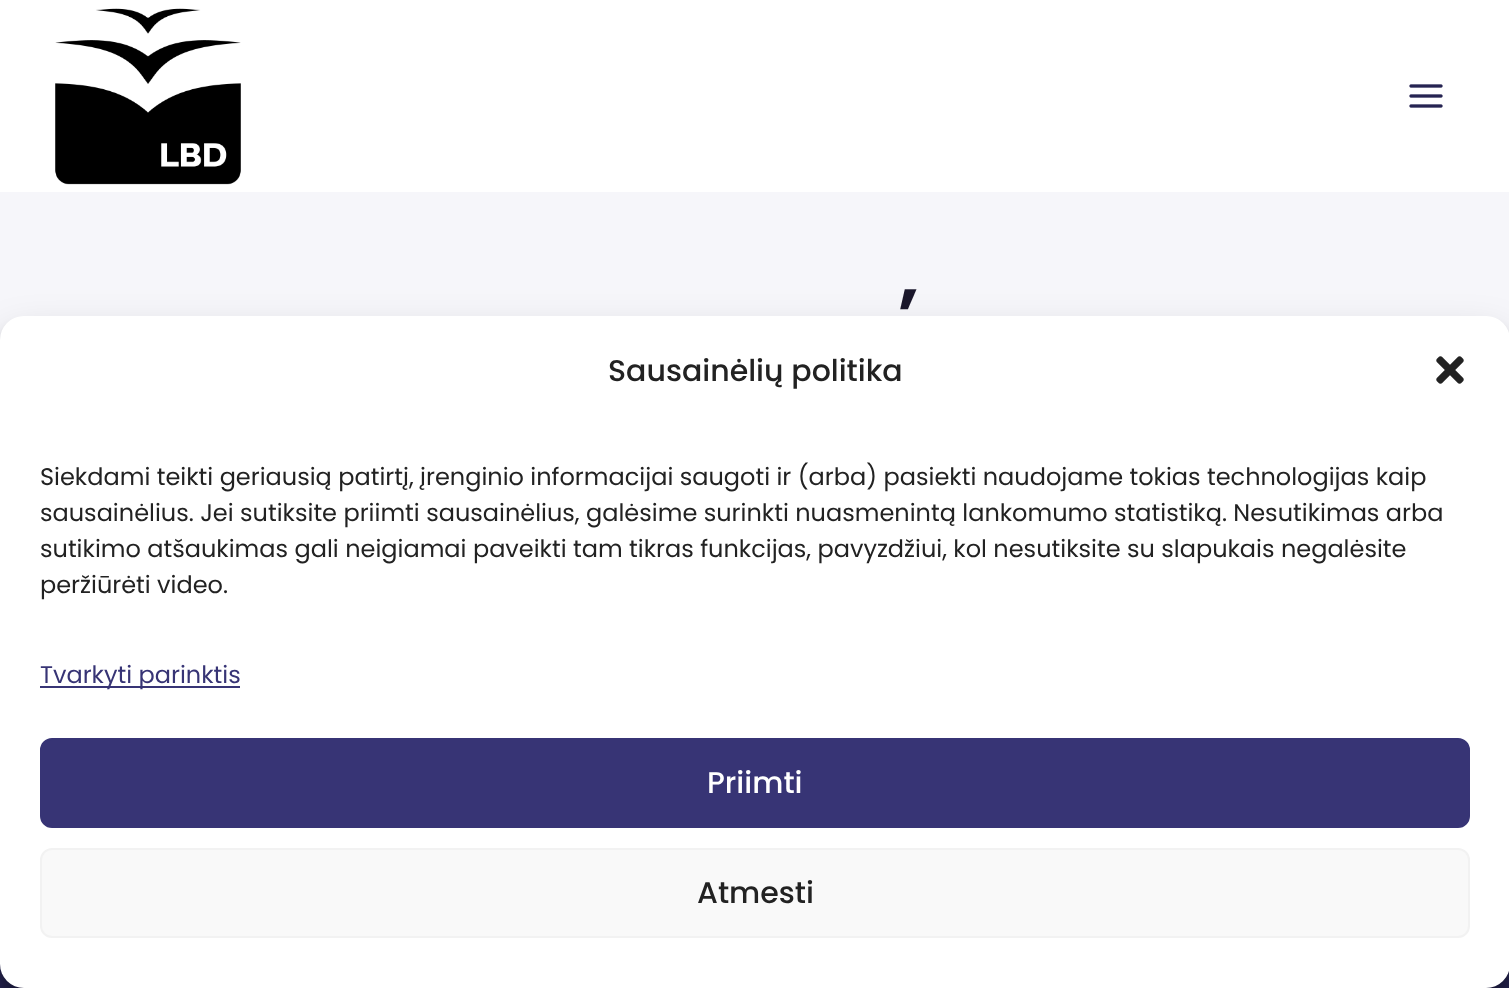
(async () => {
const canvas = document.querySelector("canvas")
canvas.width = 1509
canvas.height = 988
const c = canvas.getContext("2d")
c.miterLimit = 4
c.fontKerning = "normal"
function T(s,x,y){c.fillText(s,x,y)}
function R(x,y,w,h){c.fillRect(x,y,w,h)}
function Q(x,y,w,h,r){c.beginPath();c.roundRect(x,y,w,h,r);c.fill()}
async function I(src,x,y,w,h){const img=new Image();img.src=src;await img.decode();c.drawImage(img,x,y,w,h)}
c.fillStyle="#f6f6fa"
R(0,0,1509,988)
c.fillStyle="#fff"
R(0,0,1509,192)
await I("1.png",55,8,186,177)
await I("2.png",1409,84,34,24)
c.font="600 80px Poppins"
c.fillStyle="#1b182c"
T("’",897,345)
c.fillStyle="#262452"
R(0,964,1509,24)
c.fillStyle="#0000003b"
c.filter="blur(6px)"
c.beginPath()
c.roundRect(0,328,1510,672,24)
c.fill()
c.filter="none"
c.fillStyle="#00000030"
c.filter="blur(20px)"
c.beginPath()
c.roundRect(0,336,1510,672,24)
c.fill()
c.filter="none"
c.fillStyle="#fff"
Q(0,316,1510,672,24)
c.font="500 30px Poppins"
c.fillStyle="#222"
T("Sausainėlių politika",608,381)
await I("3.png",1436,356,28,28)
c.font="24px Poppins"
T("Siekdami teikti geriausią patirtį, įrenginio informacijai saugoti ir (arba) pasiekti naudojame tokias technologijas kaip",40,485)
T("sausainėlius. Jei sutiksite priimti sausainėlius, galėsime surinkti nuasmenintą lankomumo statistiką. Nesutikimas arba",40,521)
T("sutikimo atšaukimas gali neigiamai paveikti tam tikras funkcijas, pavyzdžiui, kol nesutiksite su slapukais negalėsite",40,557)
T("peržiūrėti video.",40,593)
c.fillStyle="#373475"
R(40,686,200,2)
T("Tvarkyti parinktis",40,683)
c.beginPath()
c.roundRect(41,739,1428,88,11)
c.fill()
c.strokeStyle="#373475"
c.lineWidth=2
c.stroke()
c.font="500 30px Poppins"
c.fillStyle="#fff"
T("Priimti",707,793)
c.fillStyle="#f9f9f9"
c.beginPath()
c.roundRect(41,849,1428,88,11)
c.fill()
c.strokeStyle="#f2f2f2"
c.stroke()
c.fillStyle="#222"
T("Atmesti",697,903)
})()
